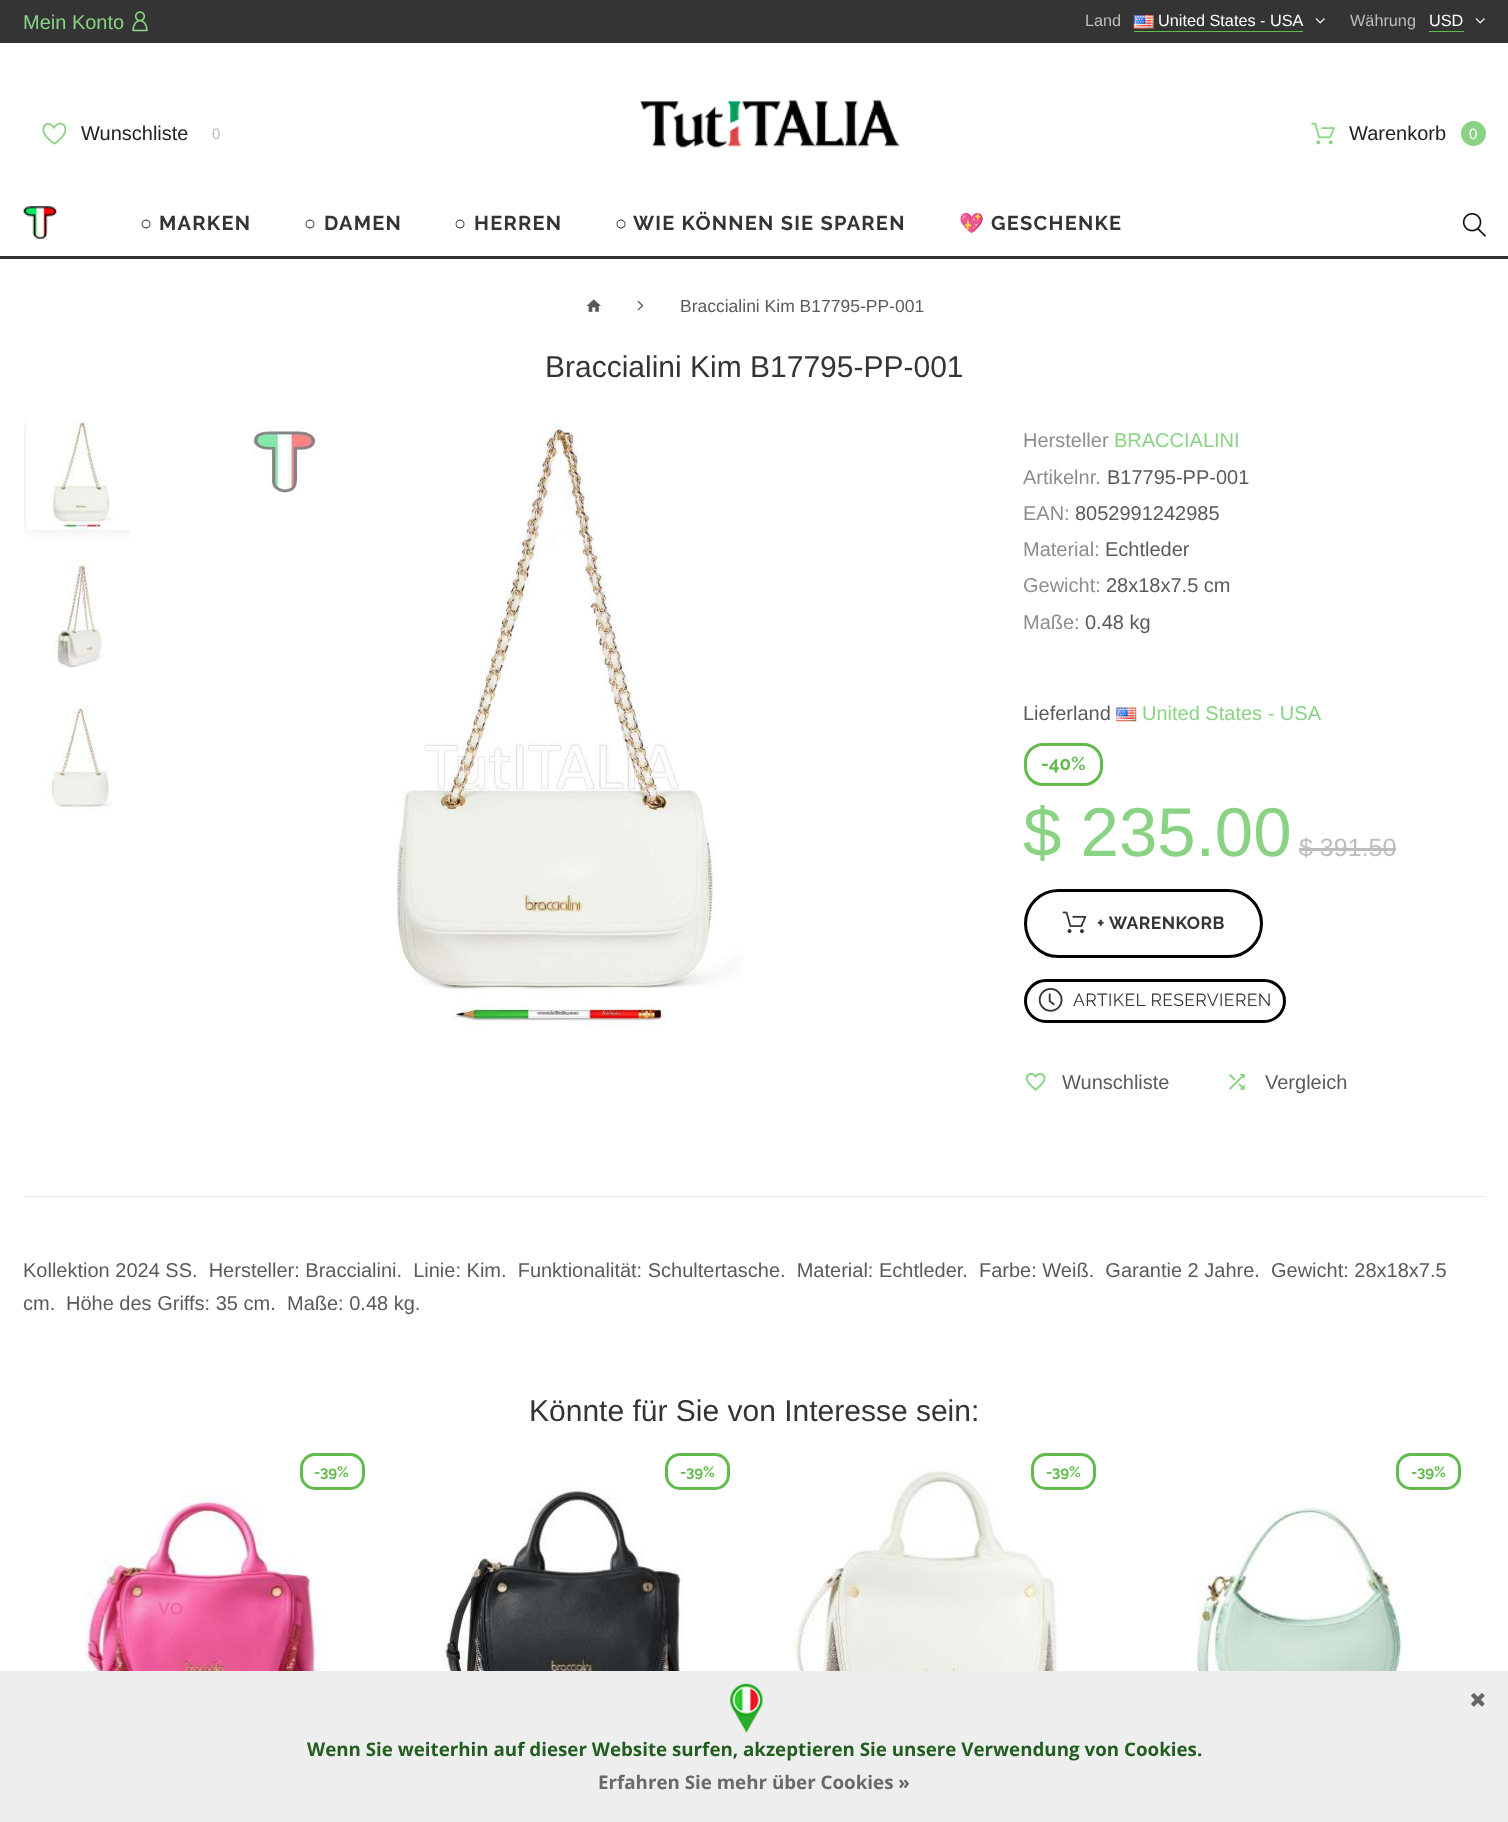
(async () => {
const canvas = document.querySelector("canvas")
canvas.width = 1508
canvas.height = 1822
const c = canvas.getContext("2d")
c.miterLimit = 4
c.fontKerning = "normal"
function T(s,x,y){c.fillText(s,x,y)}
function R(x,y,w,h){c.fillRect(x,y,w,h)}
async function I(src,x,y,w,h){const img=new Image();img.src=src;await img.decode();c.drawImage(img,x,y,w,h)}
c.fillStyle="#fff"
R(0,0,1508,1822)
c.fillStyle="#343434"
R(0,0,1508,43)
c.font="20px Arimo"
c.fillStyle="#8ad384"
T("Mein Konto",23,29)
await I("1.png",132,11,16,21)
c.font="16.25px Arimo"
c.fillStyle="#bdbdbd"
T("Land",1085,26)
await I("2.png",1133,15,21,14)
c.fillStyle="#fff"
T("United States - USA",1158,26)
c.fillStyle="#63ba4e"
R(1134,31,169,1)
await I("3.png",1315,18,10,6)
c.fillStyle="#bdbdbd"
T("Währung",1350,26)
c.fillStyle="#fff"
T("USD",1429,26)
c.fillStyle="#63ba4e"
R(1429,31,35,1)
await I("3.png",1475,18,10,6)
await I("4.png",42,122,25,23)
c.font="20px Arimo"
c.fillStyle="#212121"
T("Wunschliste",81,140)
c.font="15px Arimo"
c.fillStyle="#bdbdbd"
T("0",212,139)
await I("5.png",640,99,260,49)
await I("6.png",1311,122,24,23)
c.font="20px Arimo"
c.fillStyle="#212121"
T("Warenkorb",1349,140)
c.fillStyle="#8ad384"
c.beginPath()
c.arc(1473.5,133.5,12.5,0,7)
c.fill()
c.font="15px Arimo"
c.fillStyle="#fff"
T("0",1469,139)
c.fillStyle="#343434"
R(0,256,1508,3)
await I("7.png",23,206,34,33)
c.letterSpacing="1.25px"
c.font="bold 20px Liberation Sans"
T("○",140,230)
c.font="bold 20px Raleway"
T("MARKEN",159,230)
c.font="bold 20px Liberation Sans"
T("○",304,230)
c.font="bold 20px Raleway"
T("DAMEN",324,230)
c.font="bold 20px Liberation Sans"
T("○",454,230)
c.font="bold 20px Raleway"
T("HERREN",474,230)
c.font="bold 20px Liberation Sans"
T("○",615,230)
c.font="bold 20px Raleway"
T("WIE KÖNNEN SIE SPAREN",633,230)
c.font="bold 20px Noto Color Emoji"
T("💖",959,230)
c.font="bold 20px Raleway"
T("GESCHENKE",991,230)
await I("8.png",1462,213,24,24)
await I("9.png",586,299,15,13)
await I("10.png",637,300,7,11)
c.letterSpacing="0px"
c.font="17.5px Arimo"
c.fillStyle="#5a5a5a"
T("Braccialini Kim B17795-PP-001",680,312)
c.font="30px Arimo"
c.fillStyle="#343434"
T("Braccialini Kim B17795-PP-001",545,377)
c.save()
c.beginPath()
c.rect(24,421,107,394)
c.clip()
c.fillStyle="#0000001a"
c.filter="blur(6px)"
c.beginPath()
c.rect(26,421,109,109)
c.fill()
c.filter="none"
c.restore()
c.fillStyle="#fff"
R(26,421,105,109)
await I("11.png",49,421,64,109)
await I("12.png",54,563,48,105)
await I("13.png",47,706,65,104)
await I("14.png",253,421,490,606)
c.font="20px Arimo"
c.fillStyle="#8d8d8d"
T("Hersteller",1023,447)
c.fillStyle="#8ad384"
T("BRACCIALINI",1114,447)
c.fillStyle="#8d8d8d"
T("Artikelnr.",1023,484)
c.fillStyle="#5a5a5a"
T("B17795-PP-001",1107,484)
c.fillStyle="#8d8d8d"
T("EAN:",1023,520)
c.fillStyle="#5a5a5a"
T("8052991242985",1075,520)
c.fillStyle="#8d8d8d"
T("Material:",1023,556)
c.fillStyle="#5a5a5a"
T("Echtleder",1105,556)
c.fillStyle="#8d8d8d"
T("Gewicht:",1023,592)
c.fillStyle="#5a5a5a"
T("28x18x7.5 cm",1106,592)
c.fillStyle="#8d8d8d"
T("Maße:",1023,629)
c.fillStyle="#5a5a5a"
T("0.48 kg",1085,629)
T("Lieferland",1023,720)
await I("15.png",1116,707,21,15)
c.fillStyle="#8ad384"
T("United States - USA",1142,720)
c.beginPath()
c.roundRect(1025.5,744.5,76,40,17.5)
c.strokeStyle="#63ba4e"
c.lineWidth=3
c.stroke()
c.font="bold 18.75px Raleway"
c.fillStyle="#63ba4e"
T("-40%",1041,770)
c.font="69px Arimo"
c.fillStyle="#8ad384"
T("$ 235.00",1023,856)
c.font="25px Arimo"
c.fillStyle="#bdbdbd"
T("$ 391.50",1299,856)
R(1299,848,97,3)
c.beginPath()
c.roundRect(1025.5,890.5,236,66,33)
c.strokeStyle="#000"
c.stroke()
await I("16.png",1062,911,25,23)
c.letterSpacing="0.4px"
c.font="bold 17.5px Raleway"
c.fillStyle="#343434"
T("+ WARENKORB",1097,929)
c.beginPath()
c.roundRect(1025.5,980.5,259,41,20.5)
c.stroke()
await I("17.png",1038,988,25,24)
c.font="17.5px Raleway"
T("ARTIKEL RESERVIEREN",1073,1006)
await I("18.png",1025,1073,21,18)
c.letterSpacing="0px"
c.font="20px Arimo"
c.fillStyle="#5a5a5a"
T("Wunschliste",1062,1089)
await I("19.png",1229,1073,16,17)
T("Vergleich",1265,1089)
c.fillStyle="#ebebeb"
R(24,1196,1462,1)
c.fillStyle="#5a5a5a"
T("Kollektion 2024 SS.  Hersteller: Braccialini.  Linie: Kim.  Funktionalität: Schultertasche.  Material: Echtleder.  Farbe: Weiß.  Garantie 2 Jahre.",23,1277)
T("Gewicht: 28x18x7.5",1271,1277)
T("cm.",23,1310)
T("Höhe des Griffs: 35 cm.",66,1310)
T("Maße: 0.48 kg.",287,1310)
c.font="30px Arimo"
c.fillStyle="#343434"
T("Könnte für Sie von Interesse sein:",529,1421)
c.beginPath()
c.roundRect(301.5,1454.5,62,34,13.5)
c.strokeStyle="#63ba4e"
c.stroke()
c.font="bold 15px Raleway"
c.fillStyle="#63ba4e"
T("-39%",314,1477)
await I("20.png",84,1494,279,177)
c.letterSpacing="0.4px"
c.font="bold 17.5px Raleway"
c.fillStyle="#f067a3"
T("VO",158,1615)
await I("21.png",442,1487,288,184)
c.beginPath()
c.roundRect(666.5,1454.5,62,34,13.5)
c.stroke()
c.letterSpacing="0px"
c.font="bold 15px Raleway"
c.fillStyle="#63ba4e"
T("-39%",680,1477)
await I("22.png",792,1470,266,201)
c.beginPath()
c.roundRect(1032.5,1454.5,62,34,13.5)
c.stroke()
T("-39%",1046,1477)
c.beginPath()
c.roundRect(1397.5,1454.5,62,34,13.5)
c.stroke()
T("-39%",1411,1477)
await I("23.png",1197,1506,264,165)
c.fillStyle="#eee"
R(0,1671,1508,151)
await I("24.png",1471,1693,14,14)
await I("25.png",730,1683,33,50)
c.font="bold 18.75px Open Sans"
c.fillStyle="#215d1f"
T("Wenn Sie weiterhin auf dieser Website surfen, akzeptieren Sie unsere Verwendung von",307,1756)
T("Cookies",1124,1756)
T(".",1197,1756)
c.fillStyle="#696969"
T("Erfahren Sie mehr über Cookies »",598,1789)
})()
